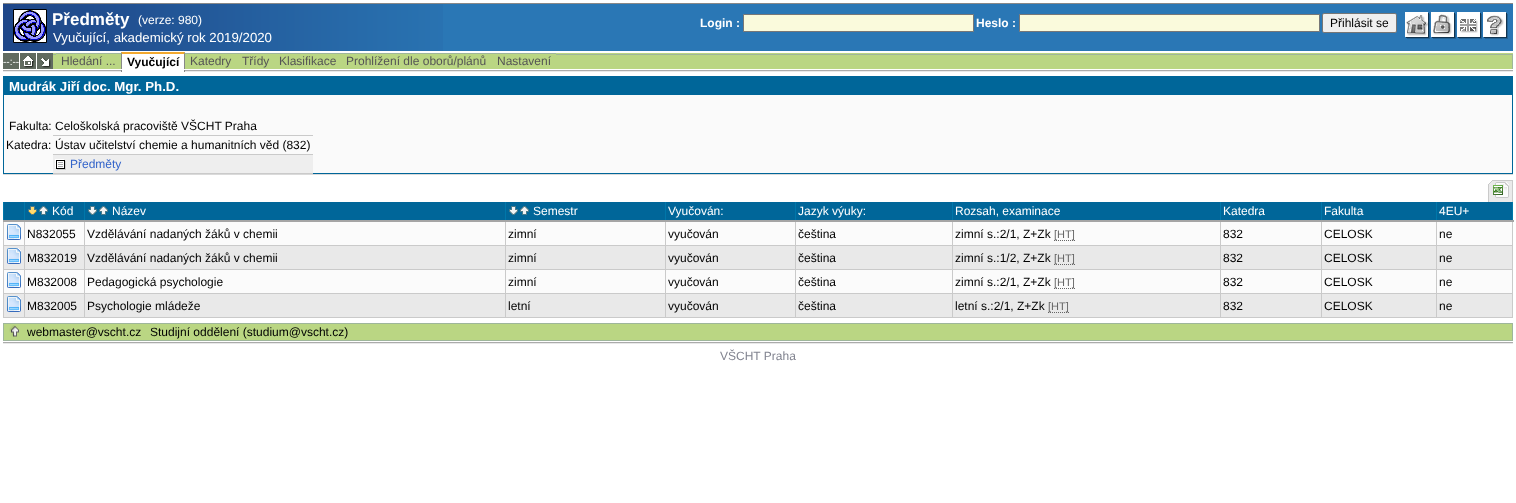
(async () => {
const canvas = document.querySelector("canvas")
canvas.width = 1516
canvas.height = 503
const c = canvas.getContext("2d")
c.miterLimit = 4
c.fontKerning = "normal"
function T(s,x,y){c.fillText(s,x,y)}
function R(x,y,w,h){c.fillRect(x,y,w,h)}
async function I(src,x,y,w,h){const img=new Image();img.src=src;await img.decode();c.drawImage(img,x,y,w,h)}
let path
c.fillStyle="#fff"
R(0,0,1516,503)
c.fillStyle="#2a77b5"
R(443,4,1070,47)
await I("1.png",3,4,440,47)
c.fillStyle="#888"
R(3,3,1510,1)
c.fillStyle="#fff"
c.beginPath()
c.rect(13.5,9.5,33,33)
c.fill()
c.strokeStyle="#000"
c.stroke()
await I("2.png",14,10,32,32)
c.font="bold 17px Liberation Sans"
T("Předměty",52,25)
c.font="12px Liberation Sans"
T("(verze: 980)",138,24)
c.font="13.25px Liberation Sans"
T("Vyučující, akademický rok 2019/2020",53,42)
c.font="bold 12px Liberation Sans"
T("Login :",700,27)
c.fillStyle="#fafadc"
c.beginPath()
c.rect(743.5,14.5,230,17)
c.fill()
c.strokeStyle="#777"
c.stroke()
c.fillStyle="#fff"
T("Heslo :",976,27)
c.fillStyle="#fafadc"
c.beginPath()
c.rect(1019.5,14.5,300,17)
c.fill()
c.stroke()
c.fillStyle="#efefef"
c.beginPath()
c.roundRect(1322.5,13.5,74,19,1.5)
c.fill()
c.strokeStyle="#767676"
c.stroke()
c.font="12px Liberation Sans"
c.fillStyle="#000"
T("Přihlásit se",1330,27)
await I("3.png",1405,12,25,27)
await I("4.png",1431,12,25,27)
await I("5.png",1457,12,25,27)
await I("6.png",1483,12,25,27)
c.fillStyle="#bad683"
R(53,52,1460,17)
c.fillStyle="#616b60"
R(20,53,16,16)
await I("7.png",23,56,12,12)
R(37,53,16,16)
await I("8.png",41,58,10,10)
c.fillStyle="#fff"
R(53,52,68,1)
c.fillStyle="#9eb69b"
R(53,54,3,1)
c.fillStyle="#555"
T("Prohlížení dle oborů/plánů",346,65)
c.fillStyle="#9eb69b"
R(556,54,957,1)
R(1512,54,1,15)
c.fillStyle="#616b60"
R(3,53,16,16)
c.font="10px Liberation Sans"
c.fillStyle="#fff"
T("--:--",3,65)
c.fillStyle="#9eb69b"
R(56,53,65,1)
c.font="12px Liberation Sans"
c.fillStyle="#555"
T("Hledání ...",61,65)
c.fillStyle="#f2a92f"
path = new Path2D("M121 52h64l-1 2h-62z")
c.fill(path)
c.fillStyle="#888"
path = new Path2D("M185 52v17h-1v-15z")
c.fill(path)
path = new Path2D("M121 69v-17l1 2v15z")
c.fill(path)
c.fillStyle="#fff"
R(122,54,62,15)
c.font="bold 12px Liberation Sans"
c.fillStyle="#000"
T("Vyučující",127,66)
c.fillStyle="#fff"
R(185,52,1328,1)
c.fillStyle="#9eb69b"
R(185,53,371,1)
c.font="12px Liberation Sans"
c.fillStyle="#555"
T("Katedry",190,65)
T("Třídy",242,65)
T("Klasifikace",279,65)
T("Nastavení",497,65)
await I("9.png",3,70,118,2)
c.fillStyle="#888"
R(184,70,1,2)
R(121,70,1,2)
await I("10.png",185,70,1328,2)
c.fillStyle="#fafafa"
R(4,95,1508,78)
c.fillStyle="#069"
R(3,76,1510,2)
R(1512,76,1,98)
R(3,173,1510,1)
R(3,76,1,98)
R(4,78,1508,17)
c.font="bold 13.25px Liberation Sans"
c.fillStyle="#fff"
T("Mudrák Jiří doc. Mgr. Ph.D.",9,91)
c.font="12px Liberation Sans"
c.fillStyle="#000"
T("Fakulta:",9,130)
c.fillStyle="#cacaca"
R(53,135,260,1)
c.fillStyle="#000"
T("Celoškolská pracoviště VŠCHT Praha",55,130)
T("Katedra:",6,149)
c.fillStyle="#cacaca"
R(53,154,260,1)
c.fillStyle="#000"
T("Ústav učitelství chemie a humanitních věd (832)",55,149)
c.fillStyle="#eee"
R(53,155,260,18)
c.fillStyle="#cacaca"
R(53,173,260,1)
await I("11.png",55,159,11,11)
c.fillStyle="#3364ca"
T("Předměty",70,168)
c.fillStyle="#dadada"
R(3,174,1510,1)
await I("12.png",1488,181,4,21)
c.fillStyle="#eaeaea"
R(1492,181,20,21)
c.fillStyle="#cacaca"
R(1492,180,21,1)
R(1512,180,1,22)
await I("13.png",1493,182,16,16)
c.fillStyle="#069"
R(4,202,1508,18)
c.fillStyle="#cacaca"
R(3,245,1510,1)
R(3,269,1510,1)
R(3,293,1510,1)
R(1512,293,1,25)
R(3,317,1510,1)
R(3,293,1,25)
R(3,269,1,25)
R(3,221,1,49)
c.fillStyle="#07a"
R(3,202,1,20)
c.fillStyle="#fbfbfb"
R(4,222,1508,23)
c.fillStyle="#e9e9e9"
R(4,246,1508,23)
c.fillStyle="#fbfbfb"
R(4,270,1508,23)
c.fillStyle="#e9e9e9"
R(4,294,1508,23)
c.fillStyle="#cacaca"
R(24,221,1,97)
c.fillStyle="#07a"
R(24,202,1,20)
c.fillStyle="#cacaca"
R(84,221,1,97)
c.fillStyle="#07a"
R(84,202,1,20)
c.fillStyle="#cacaca"
R(505,221,1,97)
c.fillStyle="#07a"
R(505,202,1,20)
c.fillStyle="#cacaca"
R(665,221,1,97)
c.fillStyle="#07a"
R(665,202,1,20)
c.fillStyle="#cacaca"
R(795,221,1,97)
c.fillStyle="#07a"
R(795,202,1,20)
c.fillStyle="#cacaca"
R(952,221,1,97)
c.fillStyle="#07a"
R(952,202,1,20)
c.fillStyle="#cacaca"
R(1220,221,1,97)
c.fillStyle="#07a"
R(1220,202,1,20)
c.fillStyle="#cacaca"
R(1321,221,1,97)
c.fillStyle="#07a"
R(1321,202,1,20)
c.fillStyle="#cacaca"
R(1512,269,1,25)
R(1512,221,1,49)
c.fillStyle="#07a"
R(1512,202,1,20)
c.fillStyle="#cacaca"
R(1436,221,1,97)
c.fillStyle="#07a"
R(1436,202,1,20)
c.fillStyle="#a5a5a5"
R(3,220,1511,2)
await I("14.png",28,206,9,9)
await I("15.png",39,206,9,9)
c.fillStyle="#fff"
T("Kód",52,215)
await I("16.png",88,206,9,9)
await I("15.png",99,206,9,9)
T("Název",112,215)
await I("16.png",509,206,9,9)
await I("15.png",520,206,9,9)
T("Semestr",533,215)
T("Vyučován:",668,215)
T("Jazyk výuky:",798,215)
T("Rozsah, examinace",955,215)
T("Katedra",1223,215)
T("Fakulta",1324,215)
T("4EU+",1439,215)
await I("17.png",7,224,14,16)
c.fillStyle="#000"
T("N832055",27,238)
T("Vzdělávání nadaných žáků v chemii",87,238)
T("zimní",508,238)
T("vyučován",668,238)
T("čeština",798,238)
T("zimní s.:2/1, Z+Zk",955,238)
path = new Path2D("M1054 240.5h21")
c.strokeStyle="#666"
c.setLineDash([1,1])
c.stroke(path)
c.font="11px Liberation Sans"
c.fillStyle="#666"
T("[HT]",1054,238)
c.font="12px Liberation Sans"
c.fillStyle="#000"
T("832",1223,238)
T("CELOSK",1324,238)
T("ne",1439,238)
await I("18.png",7,248,14,16)
T("M832019",27,262)
T("Vzdělávání nadaných žáků v chemii",87,262)
T("zimní",508,262)
T("vyučován",668,262)
T("čeština",798,262)
T("zimní s.:1/2, Z+Zk",955,262)
path = new Path2D("M1054 264.5h21")
c.stroke(path)
c.font="11px Liberation Sans"
c.fillStyle="#666"
T("[HT]",1054,262)
c.font="12px Liberation Sans"
c.fillStyle="#000"
T("832",1223,262)
T("CELOSK",1324,262)
T("ne",1439,262)
await I("17.png",7,272,14,16)
T("M832008",27,286)
T("Pedagogická psychologie",87,286)
T("zimní",508,286)
T("vyučován",668,286)
T("čeština",798,286)
T("zimní s.:2/1, Z+Zk",955,286)
path = new Path2D("M1054 288.5h21")
c.stroke(path)
c.font="11px Liberation Sans"
c.fillStyle="#666"
T("[HT]",1054,286)
c.font="12px Liberation Sans"
c.fillStyle="#000"
T("832",1223,286)
T("CELOSK",1324,286)
T("ne",1439,286)
await I("18.png",7,296,14,16)
T("M832005",27,310)
T("Psychologie mládeže",87,310)
T("letní",508,310)
T("vyučován",668,310)
T("čeština",798,310)
T("letní s.:2/1, Z+Zk",955,310)
path = new Path2D("M1048 312.5h21")
c.stroke(path)
c.font="11px Liberation Sans"
c.fillStyle="#666"
T("[HT]",1048,310)
c.font="12px Liberation Sans"
c.fillStyle="#000"
T("832",1223,310)
T("CELOSK",1324,310)
T("ne",1439,310)
c.strokeStyle="#9eb69b"
c.setLineDash([])
c.strokeRect(3.5,323.5,1509,17)
c.fillStyle="#bad683"
R(4,324,1508,16)
await I("19.png",9,325,10,12)
c.fillStyle="#000"
T("webmaster@vscht.cz",27,336)
T("Studijní oddělení (studium@vscht.cz)",150,336)
await I("20.png",3,342,1510,2)
c.fillStyle="#828490"
T("VŠCHT Praha",720,360)
})()
